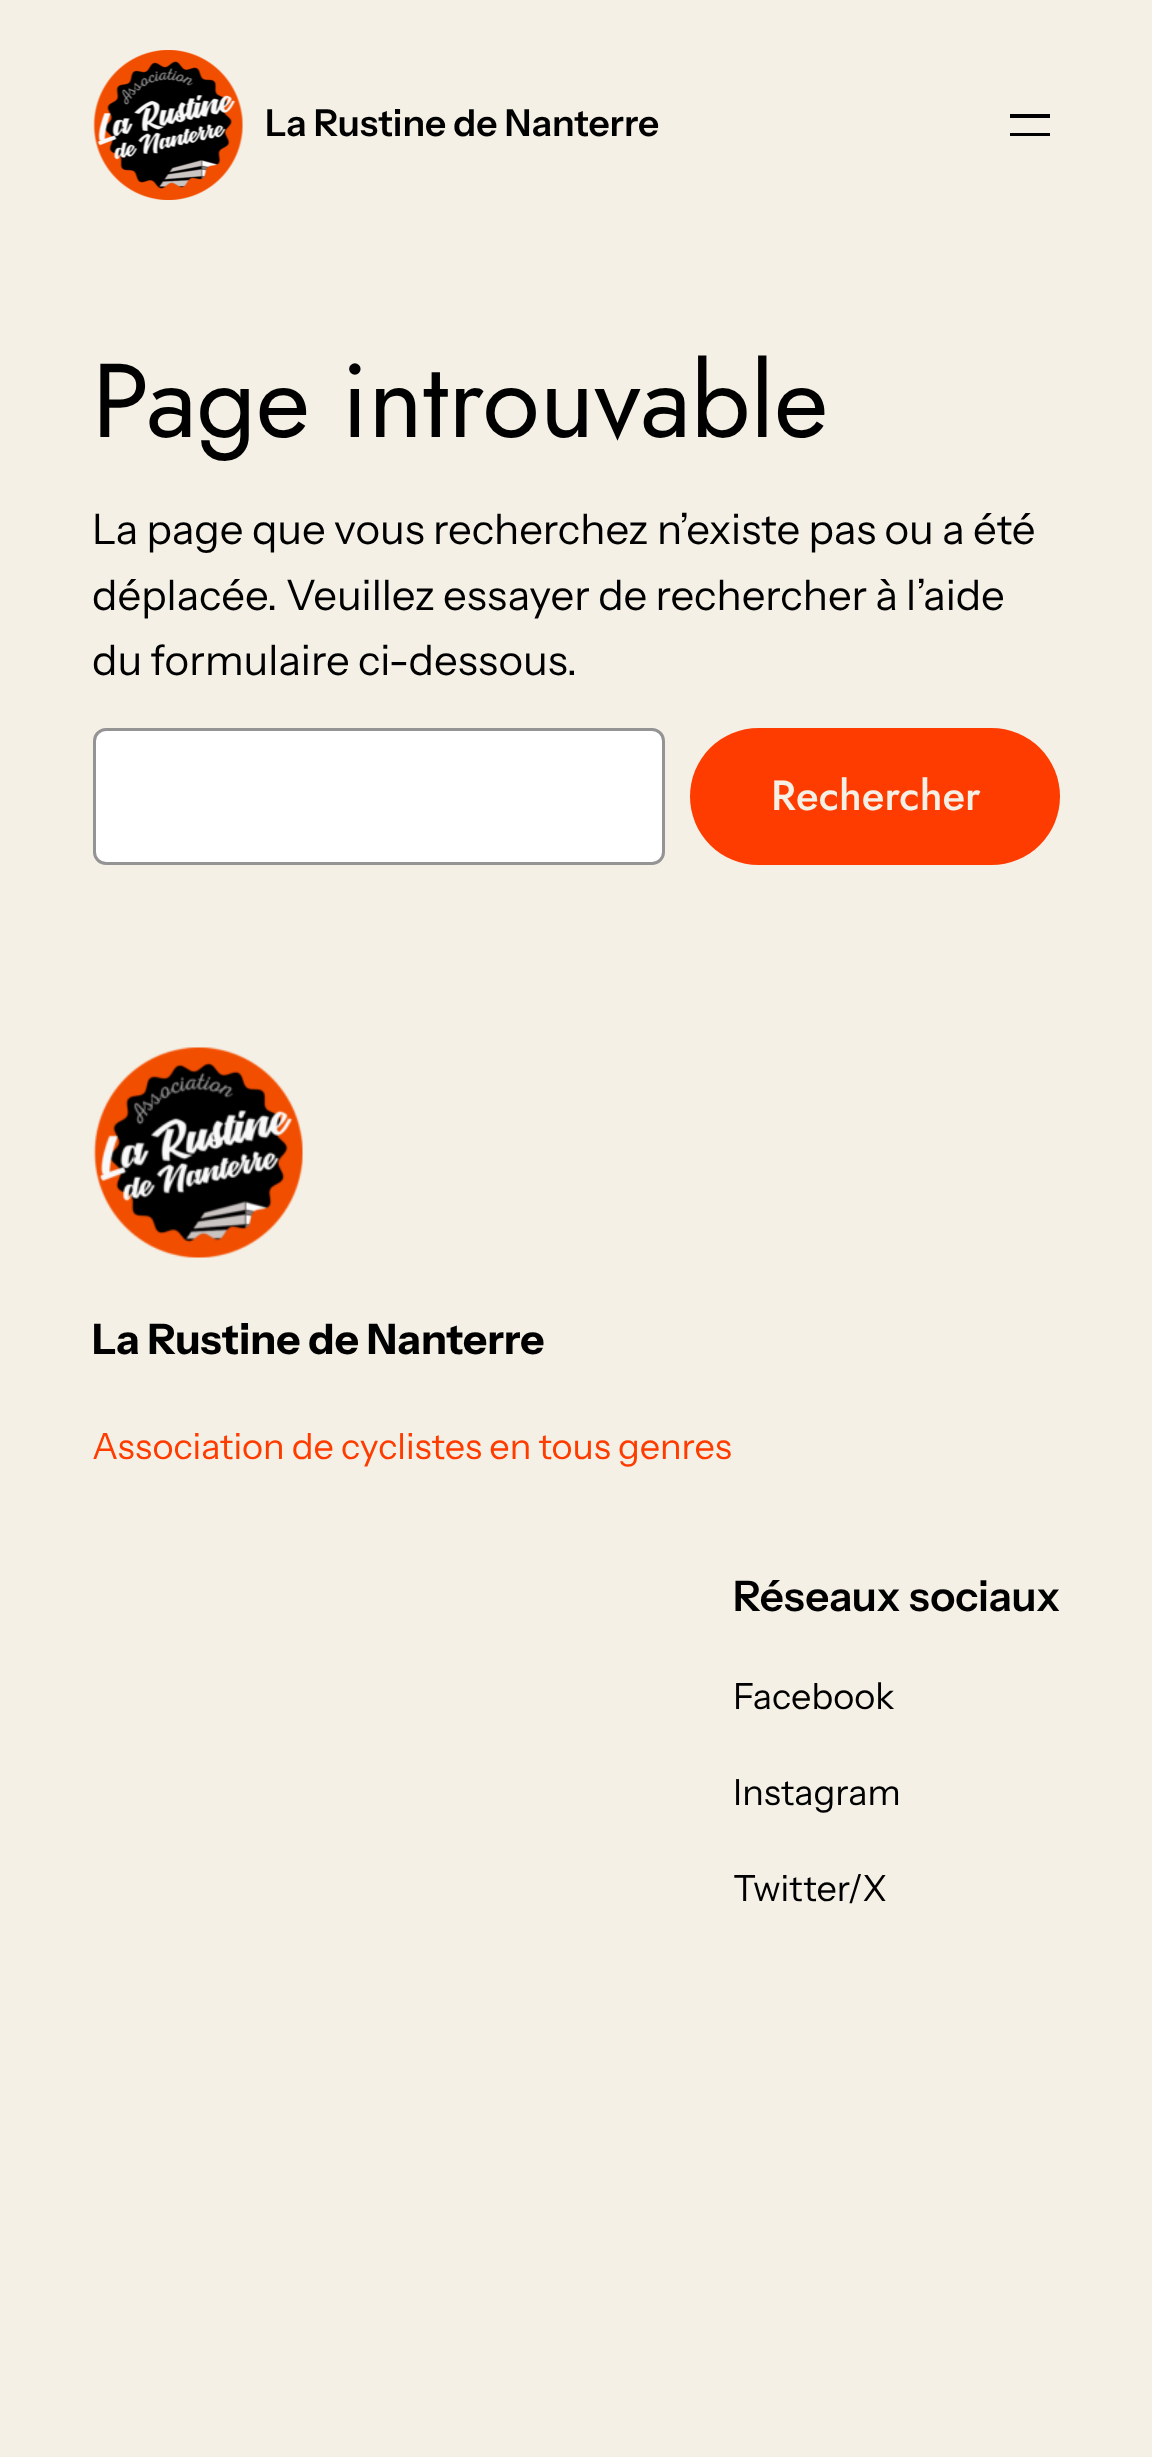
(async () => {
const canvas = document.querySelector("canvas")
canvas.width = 1152
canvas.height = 2457
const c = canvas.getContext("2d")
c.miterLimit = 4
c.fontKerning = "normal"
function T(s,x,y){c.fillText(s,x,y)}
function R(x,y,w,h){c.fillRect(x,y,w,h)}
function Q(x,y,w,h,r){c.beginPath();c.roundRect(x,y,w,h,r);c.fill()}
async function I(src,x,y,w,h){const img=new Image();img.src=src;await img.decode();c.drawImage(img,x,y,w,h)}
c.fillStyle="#f4f0e6"
R(0,0,1152,2457)
await I("1.png",93,50,150,150)
c.font="600 37px Instrument Sans"
c.fillStyle="#000"
T("La Rustine de Nanterre",265,136)
R(1010,114,40,4)
R(1010,133,40,3)
c.font="104.5px Jost"
T("Page introuvable",92,437)
c.font="42px Instrument Sans"
T("La page que vous recherchez n’existe pas ou a été",92,544)
c.wordSpacing="-0.25px"
T("déplacée. Veuillez essayer de rechercher à l’aide",92,610)
c.wordSpacing="0px"
T("du formulaire ci-dessous.",92,675)
c.fillStyle="#fff"
c.beginPath()
c.roundRect(94.5,729.5,569,134,11.5)
c.fill()
c.strokeStyle="#949494"
c.lineWidth=3
c.stroke()
c.fillStyle="#ff3c00"
Q(690,728,370,137,68.5)
c.font="500 42px Jost"
c.fillStyle="#f4f0e6"
T("Rechercher",771,810)
await I("2.png",93,1047,210,211)
c.font="bold 42px Instrument Sans"
c.fillStyle="#000"
T("La Rustine de Nanterre",92,1354)
c.font="36px Instrument Sans"
c.fillStyle="#ff3c00"
T("Association de cyclistes en tous genres",92,1459)
c.font="600 42px Instrument Sans"
c.fillStyle="#000"
T("Réseaux sociaux",733,1611)
c.font="36px Instrument Sans"
T("Facebook",733,1709)
T("Instagram",733,1805)
T("Twitter/X",733,1901)
})()
